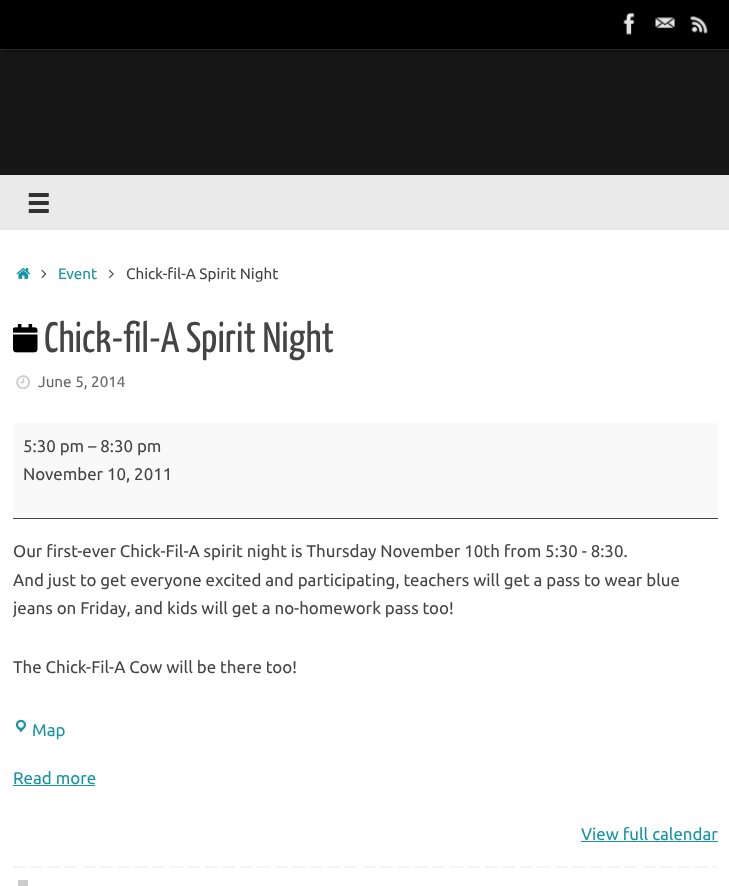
(async () => {
const canvas = document.querySelector("canvas")
canvas.width = 729
canvas.height = 886
const c = canvas.getContext("2d")
c.miterLimit = 4
c.fontKerning = "normal"
function T(s,x,y){c.fillText(s,x,y)}
function R(x,y,w,h){c.fillRect(x,y,w,h)}
async function I(src,x,y,w,h){const img=new Image();img.src=src;await img.decode();c.drawImage(img,x,y,w,h)}
c.fillStyle="#171717"
R(0,0,729,886)
c.fillStyle="#000"
c.filter="blur(2px)"
c.beginPath()
c.rect(4,0,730,50)
c.fill()
c.filter="none"
R(0,0,729,49)
c.fillStyle="#282828"
R(0,49,729,1)
await I("1.png",623,13,12,22)
await I("2.png",655,17,20,12)
await I("3.png",690,16,18,18)
c.fillStyle="#eaeaea"
R(0,175,729,55)
await I("4.png",28,193,21,20)
c.fillStyle="#fff"
R(0,230,729,656)
await I("5.png",16,268,15,11)
await I("6.png",41,269,6,10)
c.font="15.25px Ubuntu"
c.fillStyle="#1693a5"
T("Event",58,279)
await I("7.png",108,269,6,10)
c.fillStyle="#444"
T("Chick-fil-A Spirit Night",126,279)
await I("8.png",13,324,25,29)
c.font="42.5px Yanone Kaffeesatz"
T("Chick-fil-A Spirit Night",44,352)
await I("9.png",16,375,14,14)
c.font="15.25px Ubuntu"
c.fillStyle="#666"
T("June 5, 2014",38,387)
c.fillStyle="#f9f9f9"
R(13,423,705,95)
c.fillStyle="#444"
R(13,518,705,1)
c.font="16.9px Ubuntu"
T("5:30 pm – 8:30 pm",23,452)
T("November 10, 2011",23,480)
T("Our first-ever Chick-Fil-A spirit night is Thursday November 10th from 5:30 - 8:30.",13,557)
T("And just to get everyone excited and participating, teachers will get a pass to wear blue",13,586)
c.save()
c.beginPath()
c.rect(13,313,705,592)
c.clip()
T("jeans on Friday, and kids will get a no-homework pass too!",13,614)
c.restore()
T("The Chick-Fil-A Cow will be there too!",13,673)
await I("10.png",15,719,11,14)
c.fillStyle="#1693a5"
T("Map",32,736)
T("Read more",13,784)
R(13,785,82,1)
T("View full calendar",581,840)
R(581,841,137,1)
await I("11.png",13,866,704,2)
c.fillStyle="#ccc"
R(18,880,10,6)
})()
